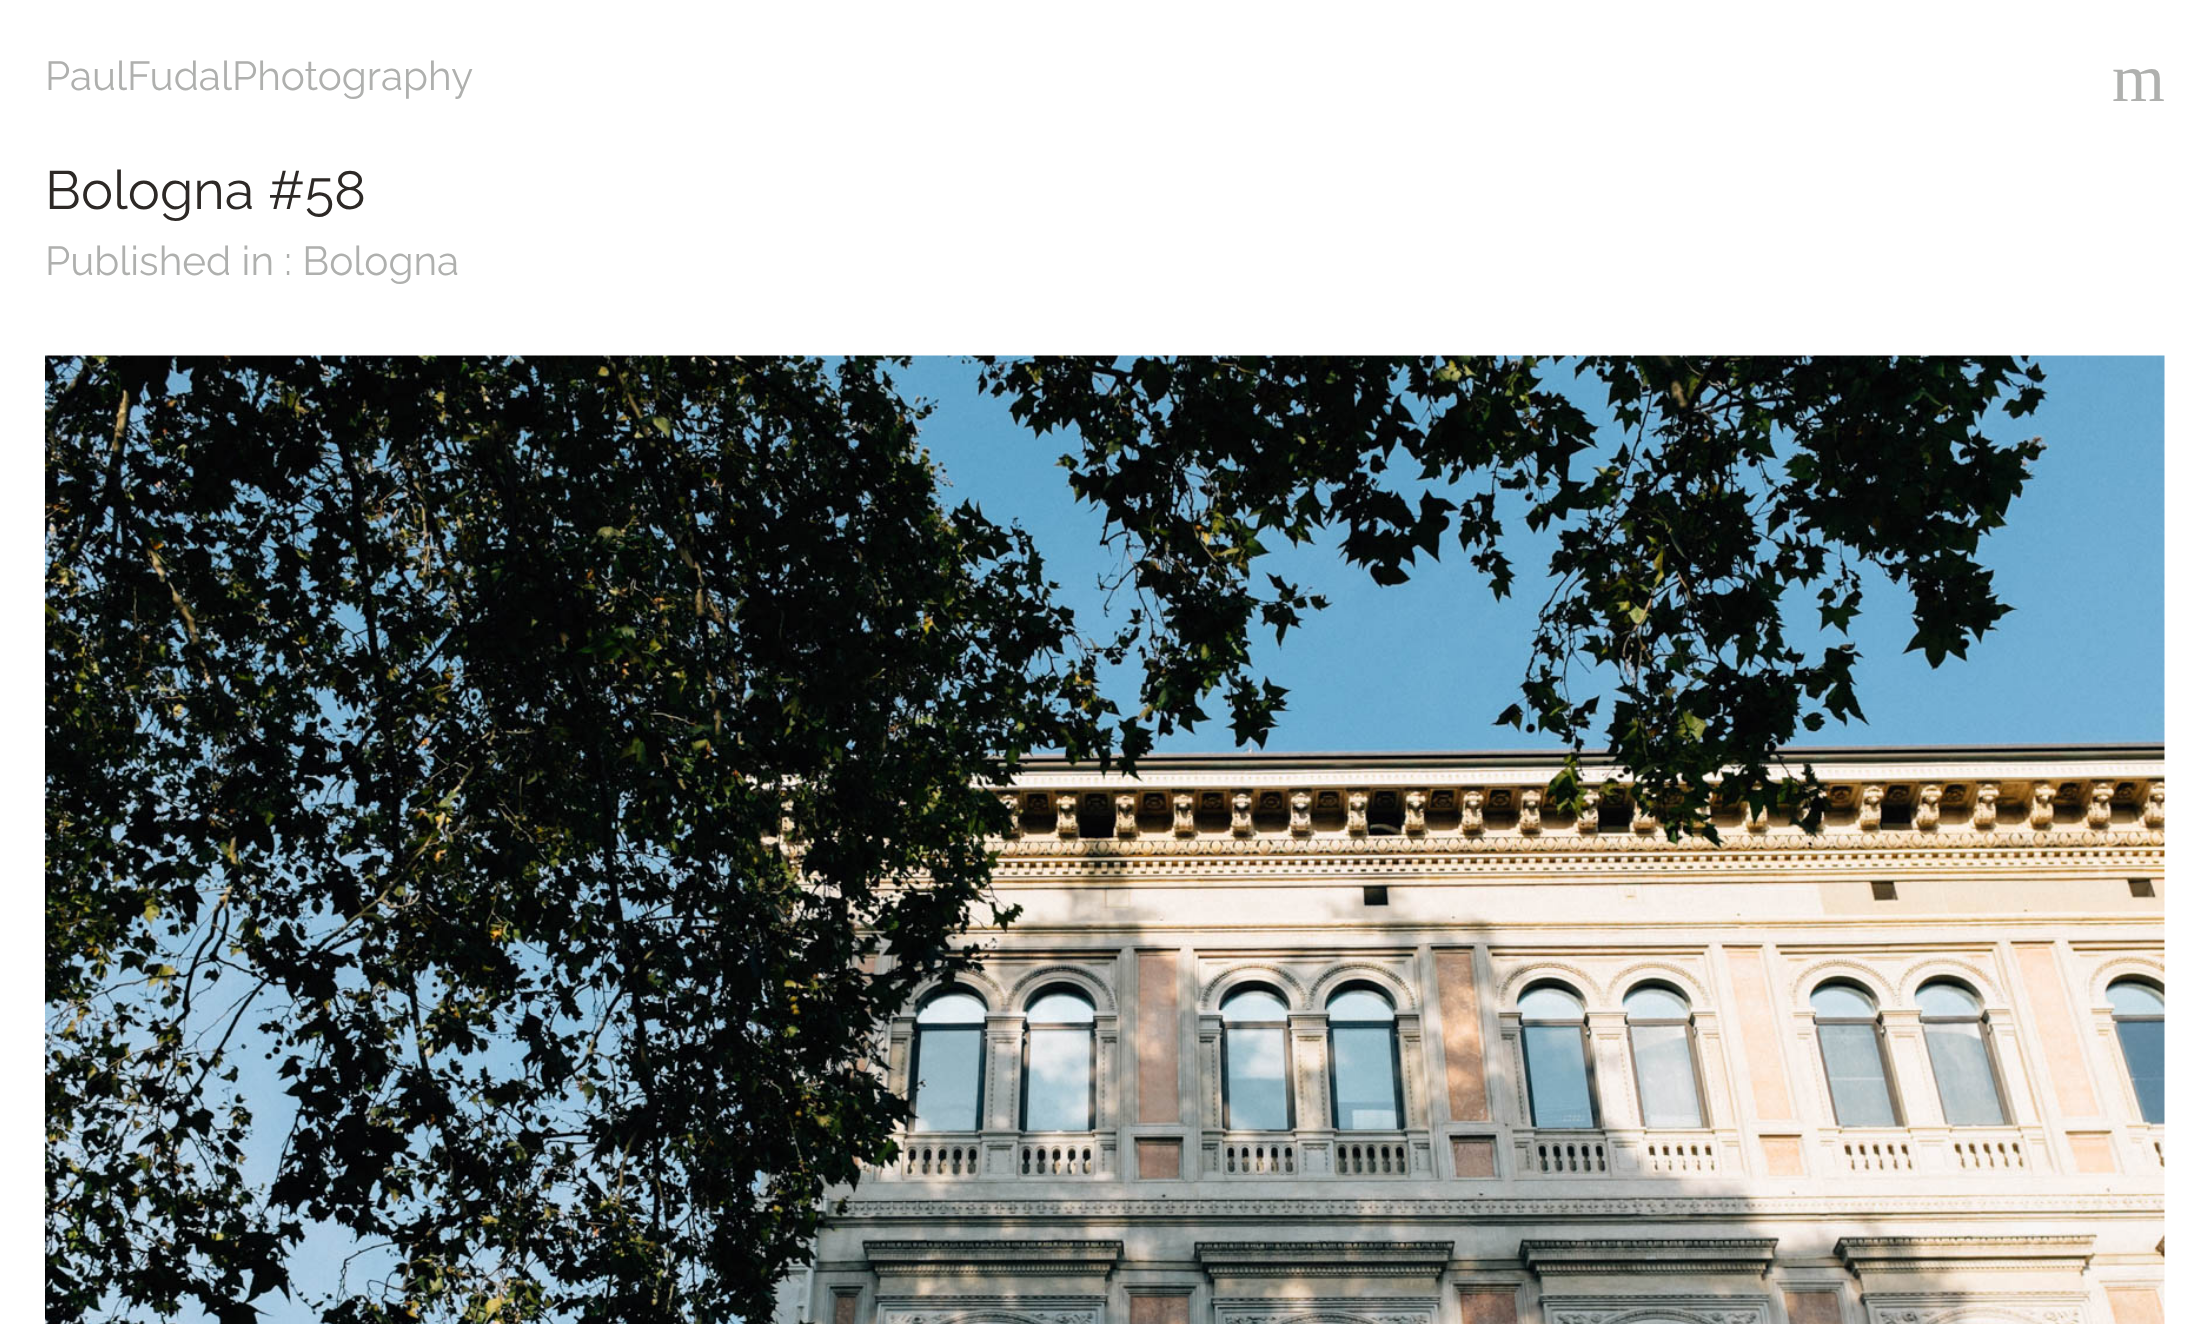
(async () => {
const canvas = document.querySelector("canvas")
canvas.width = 2208
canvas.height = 1324
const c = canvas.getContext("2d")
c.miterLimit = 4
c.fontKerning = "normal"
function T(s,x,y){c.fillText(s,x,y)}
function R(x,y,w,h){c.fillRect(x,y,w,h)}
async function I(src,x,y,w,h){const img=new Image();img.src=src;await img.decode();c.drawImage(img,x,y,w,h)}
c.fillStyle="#fff"
R(0,0,2208,1324)
c.font="100 40.5px Raleway"
c.fillStyle="#afb0ae"
T("PaulFudalPhotography",45,90)
c.font="68px Liberation Serif"
T("m",2112,101)
c.font="100 54px Raleway"
c.fillStyle="#2d2926"
T("Bologna #58",45,209)
c.font="100 40.5px Raleway"
c.fillStyle="#afb0ae"
T("Published in : Bologna",45,275)
await I("1.png",45,355,2120,969)
})()
